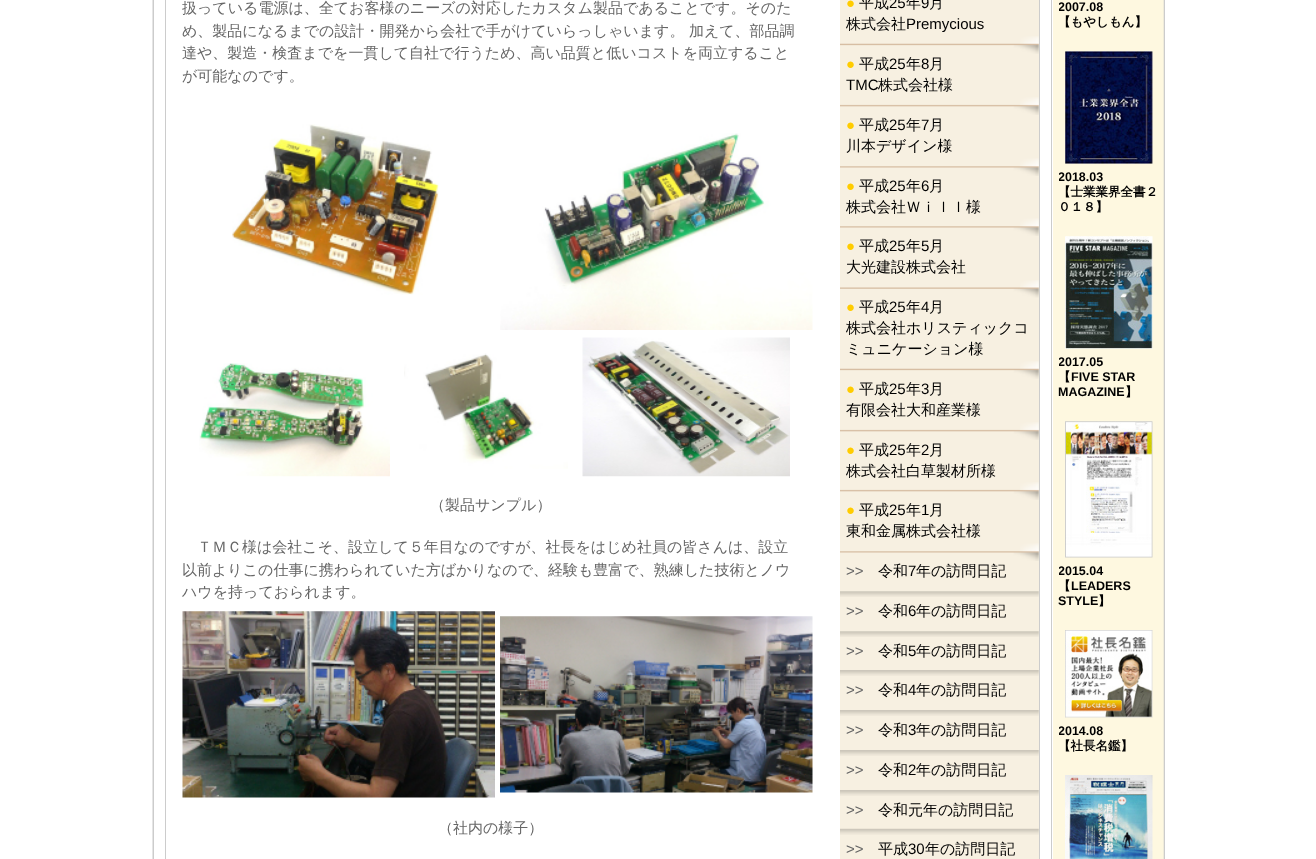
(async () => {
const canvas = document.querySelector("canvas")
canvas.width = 1316
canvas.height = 859
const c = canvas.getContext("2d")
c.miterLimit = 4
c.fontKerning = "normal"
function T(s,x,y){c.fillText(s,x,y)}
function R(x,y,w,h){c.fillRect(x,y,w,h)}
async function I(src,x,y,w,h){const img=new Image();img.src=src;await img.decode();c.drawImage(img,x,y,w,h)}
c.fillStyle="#fff"
R(0,0,1316,859)
await I("1.png",152,0,1013,859)
R(1051,0,2,859)
c.fillStyle="#ccc"
R(1051,0,1,859)
R(153,0,1,859)
R(1039,0,1,859)
R(165,0,1,859)
c.fillStyle="#f7f0e1"
R(840,0,199,859)
c.font="500 15px WenQuanYi Zen Hei"
c.fillStyle="#666"
T("扱っている電源は、全てお客様のニーズの対応したカスタム製品であることです。そのた",182,13)
T("め、製品になるまでの設計・開発から会社で手がけていらっしゃいます。 加えて、部品調",182,36)
T("達や、製造・検査までを一貫して自社で行うため、高い品質と低いコストを両立すること",182,58)
T("が可能なのです。",182,81)
await I("2.png",232,124,207,171)
await I("3.png",500,133,313,197)
await I("4.png",199,363,191,114)
await I("5.png",404,353,164,116)
await I("6.png",582,337,208,140)
T("（製品サンプル）",430,510)
T("ＴＭＣ様は会社こそ、設立して５年目なのですが、社長をはじめ社員の皆さんは、設立",197,552)
T("以前よりこの仕事に携わられていた方ばかりなので、経験も豊富で、熟練した技術とノウ",182,575)
T("ハウを持っておられます。",182,597)
await I("7.png",182,611,313,187)
await I("8.png",500,616,313,177)
T("（社内の様子）",438,833)
await I("9.png",840,36,199,18)
c.font="15px Liberation Sans"
c.fillStyle="#fc0"
T("●",846,8)
c.font="500 15px WenQuanYi Zen Hei"
c.fillStyle="#000"
T("平成",859,8)
c.font="15px Liberation Sans"
T("25",889,8)
c.font="500 15px WenQuanYi Zen Hei"
T("年",906,8)
c.font="15px Liberation Sans"
T("9",921,8)
c.font="500 15px WenQuanYi Zen Hei"
T("月",929,8)
T("株式会社",846,29)
c.font="15px Liberation Sans"
T("Premycious",906,29)
await I("10.png",840,97,199,18)
c.fillStyle="#fc0"
T("●",846,69)
c.font="500 15px WenQuanYi Zen Hei"
c.fillStyle="#000"
T("平成",859,69)
c.font="15px Liberation Sans"
T("25",889,69)
c.font="500 15px WenQuanYi Zen Hei"
T("年",906,69)
c.font="15px Liberation Sans"
T("8",921,69)
c.font="500 15px WenQuanYi Zen Hei"
T("月",929,69)
c.font="15px Liberation Sans"
T("TMC",846,90)
c.font="500 15px WenQuanYi Zen Hei"
T("株式会社様",878,90)
await I("11.png",840,158,199,18)
c.font="15px Liberation Sans"
c.fillStyle="#fc0"
T("●",846,130)
c.font="500 15px WenQuanYi Zen Hei"
c.fillStyle="#000"
T("平成",859,130)
c.font="15px Liberation Sans"
T("25",889,130)
c.font="500 15px WenQuanYi Zen Hei"
T("年",906,130)
c.font="15px Liberation Sans"
T("7",921,130)
c.font="500 15px WenQuanYi Zen Hei"
T("月",929,130)
T("川本デザイン様",846,151)
await I("11.png",840,218,199,18)
c.font="15px Liberation Sans"
c.fillStyle="#fc0"
T("●",846,191)
c.font="500 15px WenQuanYi Zen Hei"
c.fillStyle="#000"
T("平成",859,191)
c.font="15px Liberation Sans"
T("25",889,191)
c.font="500 15px WenQuanYi Zen Hei"
T("年",906,191)
c.font="15px Liberation Sans"
T("6",921,191)
c.font="500 15px WenQuanYi Zen Hei"
T("月",929,191)
T("株式会社Ｗｉｌｌ様",846,212)
await I("12.png",840,280,199,18)
c.font="15px Liberation Sans"
c.fillStyle="#fc0"
T("●",846,251)
c.font="500 15px WenQuanYi Zen Hei"
c.fillStyle="#000"
T("平成",859,251)
c.font="15px Liberation Sans"
T("25",889,251)
c.font="500 15px WenQuanYi Zen Hei"
T("年",906,251)
c.font="15px Liberation Sans"
T("5",921,251)
c.font="500 15px WenQuanYi Zen Hei"
T("月",929,251)
T("大光建設株式会社",846,272)
await I("9.png",840,361,199,18)
c.font="15px Liberation Sans"
c.fillStyle="#fc0"
T("●",846,312)
c.font="500 15px WenQuanYi Zen Hei"
c.fillStyle="#000"
T("平成",859,312)
c.font="15px Liberation Sans"
T("25",889,312)
c.font="500 15px WenQuanYi Zen Hei"
T("年",906,312)
c.font="15px Liberation Sans"
T("4",921,312)
c.font="500 15px WenQuanYi Zen Hei"
T("月",929,312)
T("株式会社ホリスティックコ",846,333)
T("ミュニケーション様",846,354)
await I("10.png",840,422,199,18)
c.font="15px Liberation Sans"
c.fillStyle="#fc0"
T("●",846,394)
c.font="500 15px WenQuanYi Zen Hei"
c.fillStyle="#000"
T("平成",859,394)
c.font="15px Liberation Sans"
T("25",889,394)
c.font="500 15px WenQuanYi Zen Hei"
T("年",906,394)
c.font="15px Liberation Sans"
T("3",921,394)
c.font="500 15px WenQuanYi Zen Hei"
T("月",929,394)
T("有限会社大和産業様",846,415)
await I("10.png",840,482,199,18)
c.font="15px Liberation Sans"
c.fillStyle="#fc0"
T("●",846,455)
c.font="500 15px WenQuanYi Zen Hei"
c.fillStyle="#000"
T("平成",859,455)
c.font="15px Liberation Sans"
T("25",889,455)
c.font="500 15px WenQuanYi Zen Hei"
T("年",906,455)
c.font="15px Liberation Sans"
T("2",921,455)
c.font="500 15px WenQuanYi Zen Hei"
T("月",929,455)
T("株式会社白草製材所様",846,476)
await I("11.png",840,543,199,18)
c.font="15px Liberation Sans"
c.fillStyle="#fc0"
T("●",846,515)
c.font="500 15px WenQuanYi Zen Hei"
c.fillStyle="#000"
T("平成",859,515)
c.font="15px Liberation Sans"
T("25",889,515)
c.font="500 15px WenQuanYi Zen Hei"
T("年",906,515)
c.font="15px Liberation Sans"
T("1",921,515)
c.font="500 15px WenQuanYi Zen Hei"
T("月",929,515)
T("東和金属株式会社様",846,536)
await I("13.png",840,591,199,6)
c.font="15px Liberation Sans"
c.fillStyle="#666"
T(">>",846,576)
c.font="500 15px WenQuanYi Zen Hei"
c.fillStyle="#000"
T("令和",878,576)
c.font="15px Liberation Sans"
T("7",908,576)
c.font="500 15px WenQuanYi Zen Hei"
T("年の訪問日記",916,576)
await I("13.png",840,631,199,6)
c.font="15px Liberation Sans"
c.fillStyle="#666"
T(">>",846,616)
c.font="500 15px WenQuanYi Zen Hei"
c.fillStyle="#000"
T("令和",878,616)
c.font="15px Liberation Sans"
T("6",908,616)
c.font="500 15px WenQuanYi Zen Hei"
T("年の訪問日記",916,616)
await I("14.png",840,670,199,6)
c.font="15px Liberation Sans"
c.fillStyle="#666"
T(">>",846,656)
c.font="500 15px WenQuanYi Zen Hei"
c.fillStyle="#000"
T("令和",878,656)
c.font="15px Liberation Sans"
T("5",908,656)
c.font="500 15px WenQuanYi Zen Hei"
T("年の訪問日記",916,656)
await I("14.png",840,710,199,6)
c.font="15px Liberation Sans"
c.fillStyle="#666"
T(">>",846,695)
c.font="500 15px WenQuanYi Zen Hei"
c.fillStyle="#000"
T("令和",878,695)
c.font="15px Liberation Sans"
T("4",908,695)
c.font="500 15px WenQuanYi Zen Hei"
T("年の訪問日記",916,695)
await I("14.png",840,750,199,6)
c.font="15px Liberation Sans"
c.fillStyle="#666"
T(">>",846,735)
c.font="500 15px WenQuanYi Zen Hei"
c.fillStyle="#000"
T("令和",878,735)
c.font="15px Liberation Sans"
T("3",908,735)
c.font="500 15px WenQuanYi Zen Hei"
T("年の訪問日記",916,735)
await I("14.png",840,790,199,6)
c.font="15px Liberation Sans"
c.fillStyle="#666"
T(">>",846,775)
c.font="500 15px WenQuanYi Zen Hei"
c.fillStyle="#000"
T("令和",878,775)
c.font="15px Liberation Sans"
T("2",908,775)
c.font="500 15px WenQuanYi Zen Hei"
T("年の訪問日記",916,775)
await I("15.png",840,828,199,7)
c.font="15px Liberation Sans"
c.fillStyle="#666"
T(">>",846,815)
c.font="500 15px WenQuanYi Zen Hei"
c.fillStyle="#000"
T("令和元年の訪問日記",878,815)
c.font="15px Liberation Sans"
c.fillStyle="#666"
T(">>",846,854)
c.font="500 15px WenQuanYi Zen Hei"
c.fillStyle="#000"
T("平成",878,854)
c.font="15px Liberation Sans"
T("30",908,854)
c.font="500 15px WenQuanYi Zen Hei"
T("年の訪問日記",925,854)
c.save()
c.beginPath()
c.rect(1059,0,106,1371)
c.clip()
c.font="bold 12.5px Liberation Sans"
T("2007.08",1058,11)
c.restore()
c.font="bold 12.5px WenQuanYi Zen Hei"
T("【もやしもん】",1058,26)
await I("16.png",1065,51,88,113)
c.save()
c.beginPath()
c.rect(1059,0,106,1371)
c.clip()
c.font="bold 12.5px Liberation Sans"
T("2018.03",1058,181)
c.restore()
T("【士業業界全書２",1058,196)
T("０１８】",1058,211)
await I("17.png",1065,236,88,113)
c.save()
c.beginPath()
c.rect(1059,0,106,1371)
c.clip()
c.font="bold 12.5px Liberation Sans"
T("2017.05",1058,366)
c.restore()
T("【",1058,381)
c.font="bold 12.5px Liberation Sans"
T("FIVE STAR",1071,381)
T("MAGAZINE",1058,396)
c.font="bold 12.5px WenQuanYi Zen Hei"
T("】",1125,396)
await I("18.png",1065,421,88,137)
c.save()
c.beginPath()
c.rect(1059,0,106,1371)
c.clip()
c.font="bold 12.5px Liberation Sans"
T("2015.04",1058,575)
c.restore()
T("【",1058,590)
c.font="bold 12.5px Liberation Sans"
T("LEADERS",1071,590)
T("STYLE",1058,605)
c.font="bold 12.5px WenQuanYi Zen Hei"
T("】",1098,605)
await I("19.png",1065,630,88,88)
c.save()
c.beginPath()
c.rect(1059,0,106,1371)
c.clip()
c.font="bold 12.5px Liberation Sans"
T("2014.08",1058,735)
c.restore()
T("【社長名鑑】",1058,750)
await I("20.png",1065,775,88,84)
})()
